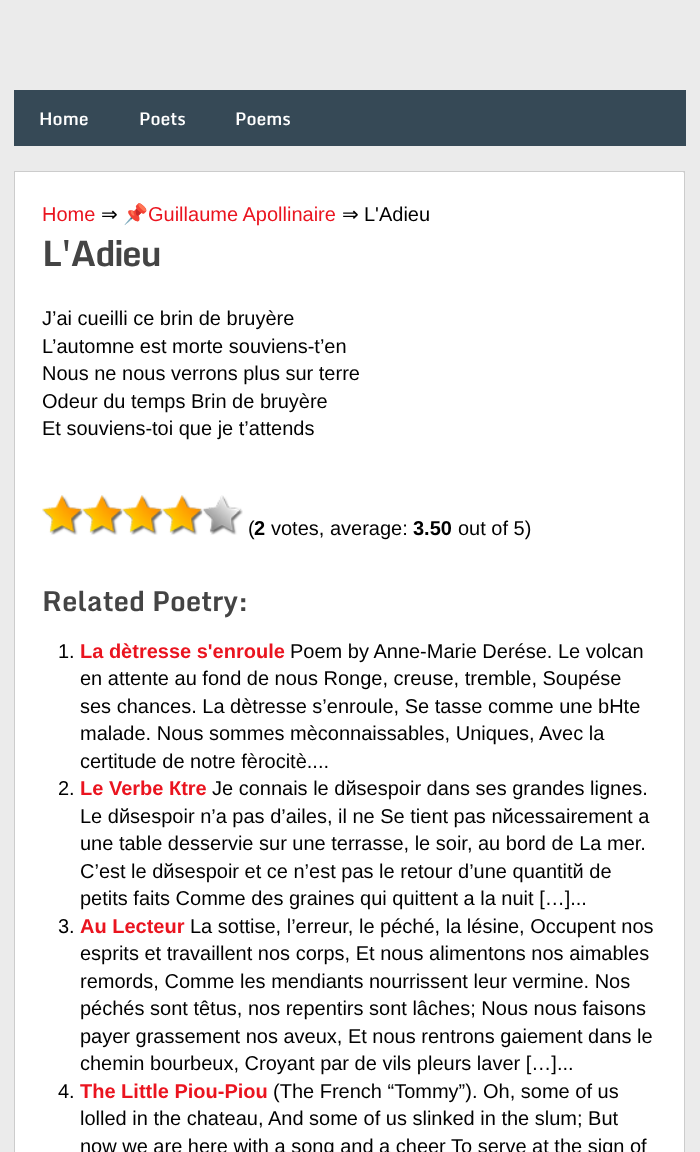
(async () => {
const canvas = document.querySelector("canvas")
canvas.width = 700
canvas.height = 1152
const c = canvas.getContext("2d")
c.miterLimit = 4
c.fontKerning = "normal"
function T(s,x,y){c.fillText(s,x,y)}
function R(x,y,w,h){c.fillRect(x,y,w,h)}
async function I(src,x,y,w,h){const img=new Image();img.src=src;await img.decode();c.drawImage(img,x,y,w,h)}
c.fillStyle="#ebebeb"
R(0,0,700,1152)
c.fillStyle="#364956"
R(14,90,672,56)
c.font="600 17.5px Monda"
c.fillStyle="#fff"
T("Home",39,125)
T("Poets",139,125)
T("Poems",235,125)
R(15,172,668,1)
c.strokeStyle="#ccc"
c.strokeRect(14.5,171.5,670,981)
R(15,173,669,979)
c.font="20px Liberation Sans"
c.fillStyle="#ea141f"
T("Home",42,221)
c.font="20px DejaVu Sans"
c.fillStyle="#000"
T("⇒",101,221)
c.font="20px Noto Color Emoji"
c.fillStyle="#ea141f"
T("📌",123,221)
c.font="20px Liberation Sans"
T("Guillaume Apollinaire",148,221)
c.font="20px DejaVu Sans"
c.fillStyle="#000"
T("⇒",342,221)
c.font="20px Liberation Sans"
T("L'Adieu",364,221)
c.letterSpacing="-1.25px"
c.font="bold 35px Monda"
c.fillStyle="#444"
T("L'Adieu",42,266)
c.letterSpacing="0px"
c.font="20px Liberation Sans"
c.fillStyle="#000"
T("J’ai cueilli ce brin de bruyère",42,325)
T("L’automne est morte souviens-t’en",42,353)
T("Nous ne nous verrons plus sur terre",42,380)
T("Odeur du temps Brin de bruyère",42,408)
T("Et souviens-toi que je t’attends",42,435)
await I("1.png",42,495,41,40)
await I("2.png",82,495,41,40)
await I("2.png",122,495,41,40)
await I("2.png",162,495,41,40)
await I("3.png",202,495,41,40)
T("(",248,535)
c.font="bold 20px Liberation Sans"
T("2",254,535)
c.font="20px Liberation Sans"
T("votes, average:",271,535)
c.font="bold 20px Liberation Sans"
T("3.50",413,535)
c.font="20px Liberation Sans"
T("out of 5)",458,535)
c.font="bold 27.5px Monda"
c.fillStyle="#444"
T("Related Poetry:",42,611)
c.font="20px Liberation Sans"
c.fillStyle="#000"
T("1.",58,658)
c.font="bold 20px Liberation Sans"
c.fillStyle="#ea141f"
T("La dètresse s'enroule",80,658)
c.font="20px Liberation Sans"
c.fillStyle="#000"
T("Poem by Anne-Marie Derése. Le volcan",290,658)
T("en attente au fond de nous Ronge, creuse, tremble, Soupése",80,685)
T("ses chances. La dètresse s’enroule, Se tasse comme une bНte",80,713)
T("malade. Nous sommes mèconnaissables, Uniques, Avec la",80,740)
T("certitude de notre fèrocitè....",80,768)
T("2.",58,795)
c.font="bold 20px Liberation Sans"
c.fillStyle="#ea141f"
T("Le Verbe Кtre",80,795)
c.font="20px Liberation Sans"
c.fillStyle="#000"
T("Je connais le dйsespoir dans ses grandes lignes.",212,795)
T("Le dйsespoir n’a pas d’ailes, il ne Se tient pas nйcessairement а",80,823)
T("une table desservie sur une terrasse, le soir, au bord de La mer.",80,850)
T("C’est le dйsespoir et ce n’est pas le retour d’une quantitй de",80,878)
T("petits faits Comme des graines qui quittent а la nuit […]...",80,905)
T("3.",58,933)
c.font="bold 20px Liberation Sans"
c.fillStyle="#ea141f"
T("Au Lecteur",80,933)
c.font="20px Liberation Sans"
c.fillStyle="#000"
T("La sottise, l’erreur, le péché, la lésine, Occupent nos",190,933)
T("esprits et travaillent nos corps, Et nous alimentons nos aimables",80,960)
T("remords, Comme les mendiants nourrissent leur vermine. Nos",80,988)
T("péchés sont têtus, nos repentirs sont lâches; Nous nous faisons",80,1015)
T("payer grassement nos aveux, Et nous rentrons gaiement dans le",80,1043)
T("chemin bourbeux, Croyant par de vils pleurs laver […]...",80,1070)
T("4.",58,1098)
c.font="bold 20px Liberation Sans"
c.fillStyle="#ea141f"
T("The Little Piou-Piou",80,1098)
c.font="20px Liberation Sans"
c.fillStyle="#000"
T("(The French “Tommy”). Oh, some of us",273,1098)
T("lolled in the chateau, And some of us slinked in the slum; But",80,1125)
T("now we are here with a song and a cheer To serve at the sign of",80,1153)
})()
